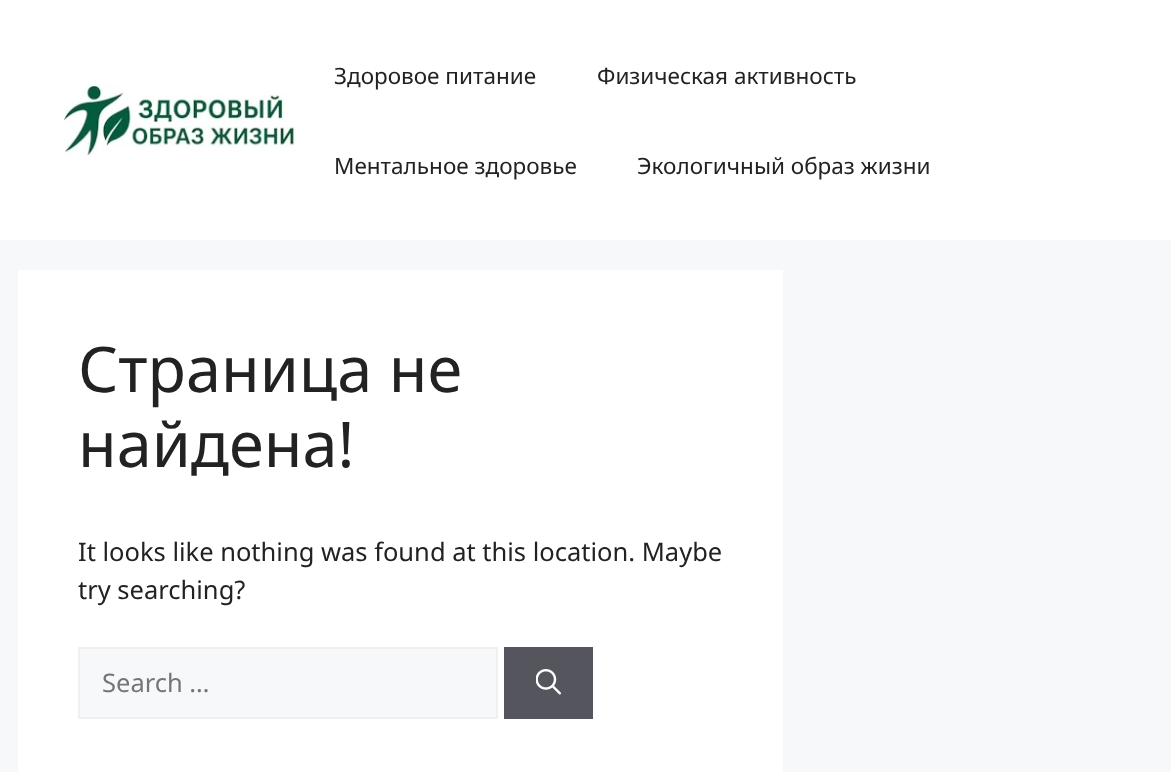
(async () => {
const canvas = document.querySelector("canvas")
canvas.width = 1171
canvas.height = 772
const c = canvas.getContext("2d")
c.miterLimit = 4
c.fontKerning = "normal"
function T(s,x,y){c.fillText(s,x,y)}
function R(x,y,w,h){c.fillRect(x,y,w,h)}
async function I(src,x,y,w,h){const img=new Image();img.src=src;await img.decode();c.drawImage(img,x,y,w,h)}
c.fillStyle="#f7f8f9"
R(0,0,1171,772)
c.fillStyle="#fff"
R(0,0,1171,240)
await I("1.png",63,84,232,72)
c.font="22.5px Noto Sans"
c.fillStyle="#222"
T("Здоровое питание",334,84)
T("Физическая активность",597,84)
T("Ментальное здоровье",334,174)
T("Экологичный образ жизни",637,174)
c.fillStyle="#fff"
R(18,270,765,502)
c.font="63px Noto Sans"
c.fillStyle="#222"
T("Страница не",78,392)
T("найдена!",78,467)
c.font="25.5px Noto Sans"
T("It looks like nothing was found at this location. Maybe",78,561)
T("try searching?",78,599)
c.fillStyle="#f7f8f9"
c.beginPath()
c.rect(79,648,418,70)
c.fill()
c.strokeStyle="#f0f0f0"
c.lineWidth=2
c.stroke()
c.fillStyle="#757575"
T("Search …",102,692)
c.fillStyle="#55555e"
R(504,647,89,72)
await I("2.png",536,669,25,26)
})()
